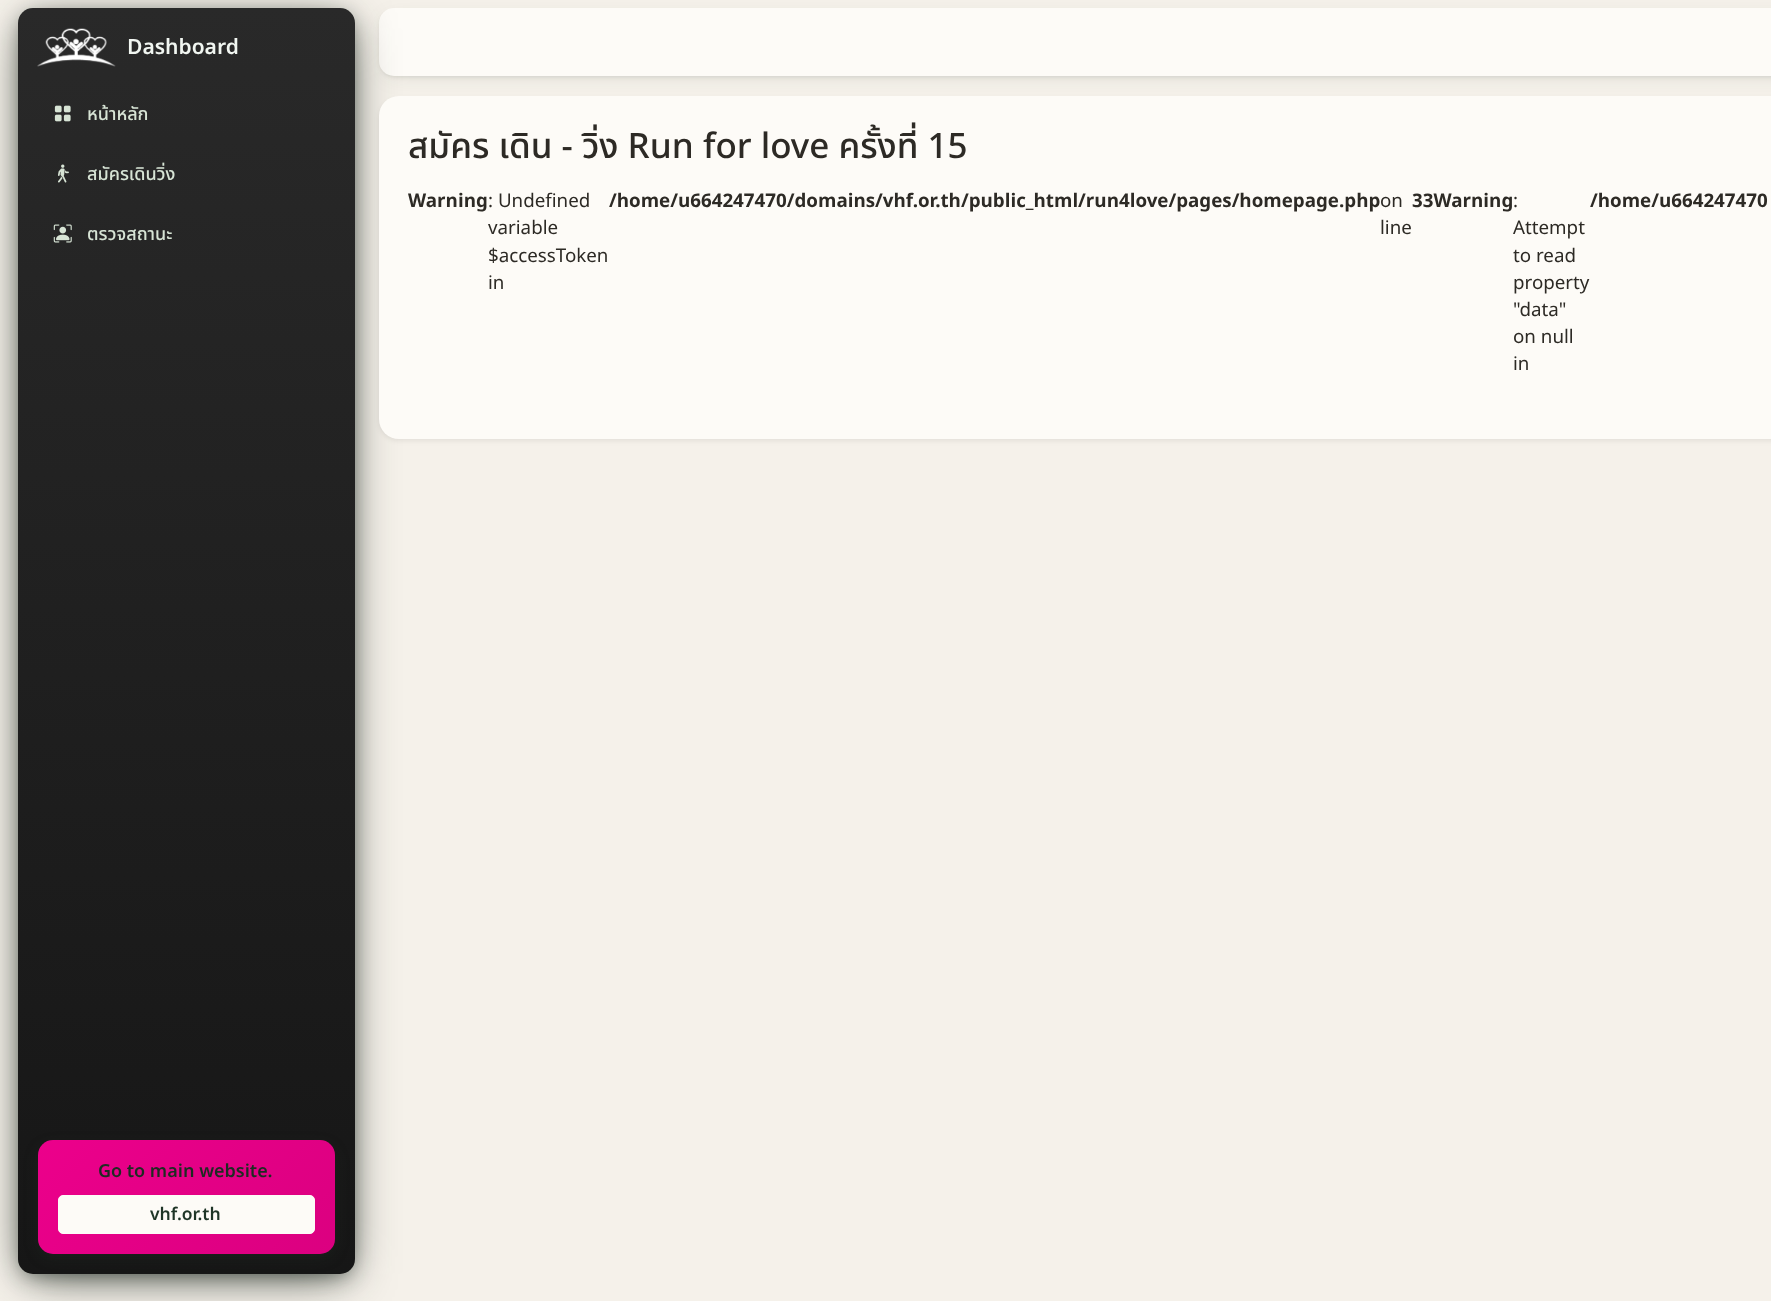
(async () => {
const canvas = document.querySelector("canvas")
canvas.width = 1771
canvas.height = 1301
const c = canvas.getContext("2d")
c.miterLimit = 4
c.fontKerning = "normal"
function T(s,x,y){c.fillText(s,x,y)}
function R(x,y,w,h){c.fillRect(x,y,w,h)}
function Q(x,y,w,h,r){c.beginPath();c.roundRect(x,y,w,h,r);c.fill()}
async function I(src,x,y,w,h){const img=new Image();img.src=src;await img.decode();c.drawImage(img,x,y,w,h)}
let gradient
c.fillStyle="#f5f1ea"
R(0,0,1771,1301)
c.fillStyle="#1a261f1f"
c.filter="blur(11px)"
c.beginPath()
c.roundRect(386,20,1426,54,8)
c.fill()
c.filter="none"
c.fillStyle="#202e2426"
c.filter="blur(2.5px)"
c.beginPath()
c.roundRect(381,13,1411,63,13)
c.fill()
c.filter="none"
c.fillStyle="#fdfbf7"
Q(379,8,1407,68,15)
c.fillStyle="#121e16b3"
c.filter="blur(25px)"
c.beginPath()
c.roundRect(28,28,317,1246,5)
c.fill()
c.filter="none"
c.fillStyle="#14201899"
c.filter="blur(11px)"
c.beginPath()
c.roundRect(23,18,327,1256,10)
c.fill()
c.filter="none"
gradient = c.createLinearGradient(186,7.5,186,1274)
gradient.addColorStop(0,"#292929")
gradient.addColorStop(1,"#161616")
c.fillStyle = gradient
Q(18,8,337,1266,15)
await I("1.png",37,28,79,39)
c.font="600 21px Noto Sans Thai"
c.fillStyle="#f1f6f1"
T("Dashboard",127,54)
await I("2.png",54,105,17,17)
c.font="500 18px Noto Sans Thai"
c.fillStyle="#d7e4d5"
T("หน้าหลัก",87,120)
await I("3.png",58,164,11,19)
T("สมัครเดินวิ่ง",87,180)
await I("4.png",53,224,19,19)
T("ตรวจสถานะ",87,240)
c.fillStyle="#24362959"
c.filter="blur(7.5px)"
c.beginPath()
c.roundRect(40,1148,293,108,13)
c.fill()
c.filter="none"
gradient = c.createLinearGradient(83,1094,289,1300)
gradient.addColorStop(0,"#ec008b")
gradient.addColorStop(1,"#db0080")
c.fillStyle = gradient
Q(38,1140,297,114,15)
c.font="600 18px Noto Sans Thai"
c.fillStyle="#1d2c22"
T("Go to main website.",98,1177)
c.fillStyle="#fdfbf7"
c.beginPath()
c.roundRect(58.5,1195.5,256,38,4.5)
c.fill()
c.strokeStyle="#fdfbf7"
c.stroke()
c.font="600 17.5px Noto Sans Thai"
c.fillStyle="#1f3527"
T("vhf.or.th",150,1220)
c.fillStyle="#00000012"
c.filter="blur(2.5px)"
c.beginPath()
c.roundRect(379,99,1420,342,20)
c.fill()
c.filter="none"
c.fillStyle="#fdfbf7"
Q(379,96,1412,343,20)
c.font="500 35px Noto Sans Thai"
c.fillStyle="#2d2a25"
T("สมัคร เดิน - วิ่ง Run for love ครั้งที่ 15",408,158)
c.font="bold 18.75px Noto Sans Thai"
T("Warning",408,207)
c.font="18.75px Noto Sans Thai"
T(": Undefined",488,207)
c.font="bold 18.75px Noto Sans Thai"
T("/home/u664247470/domains/vhf.or.th/public_html/run4love/pages/homepage.php",609,207)
c.font="18.75px Noto Sans Thai"
T("on",1380,207)
c.font="bold 18.75px Noto Sans Thai"
T("33Warning",1412,207)
c.font="18.75px Noto Sans Thai"
T(":",1513,207)
c.font="bold 18.75px Noto Sans Thai"
T("/home/u664247470",1590,207)
c.font="18.75px Noto Sans Thai"
T("variable",488,234)
T("line",1380,234)
T("Attempt",1513,234)
T("$accessToken",488,262)
T("to read",1513,262)
T("in",488,289)
T("property",1513,289)
T("\"data\"",1513,316)
T("on null",1513,343)
T("in",1513,370)
})()
